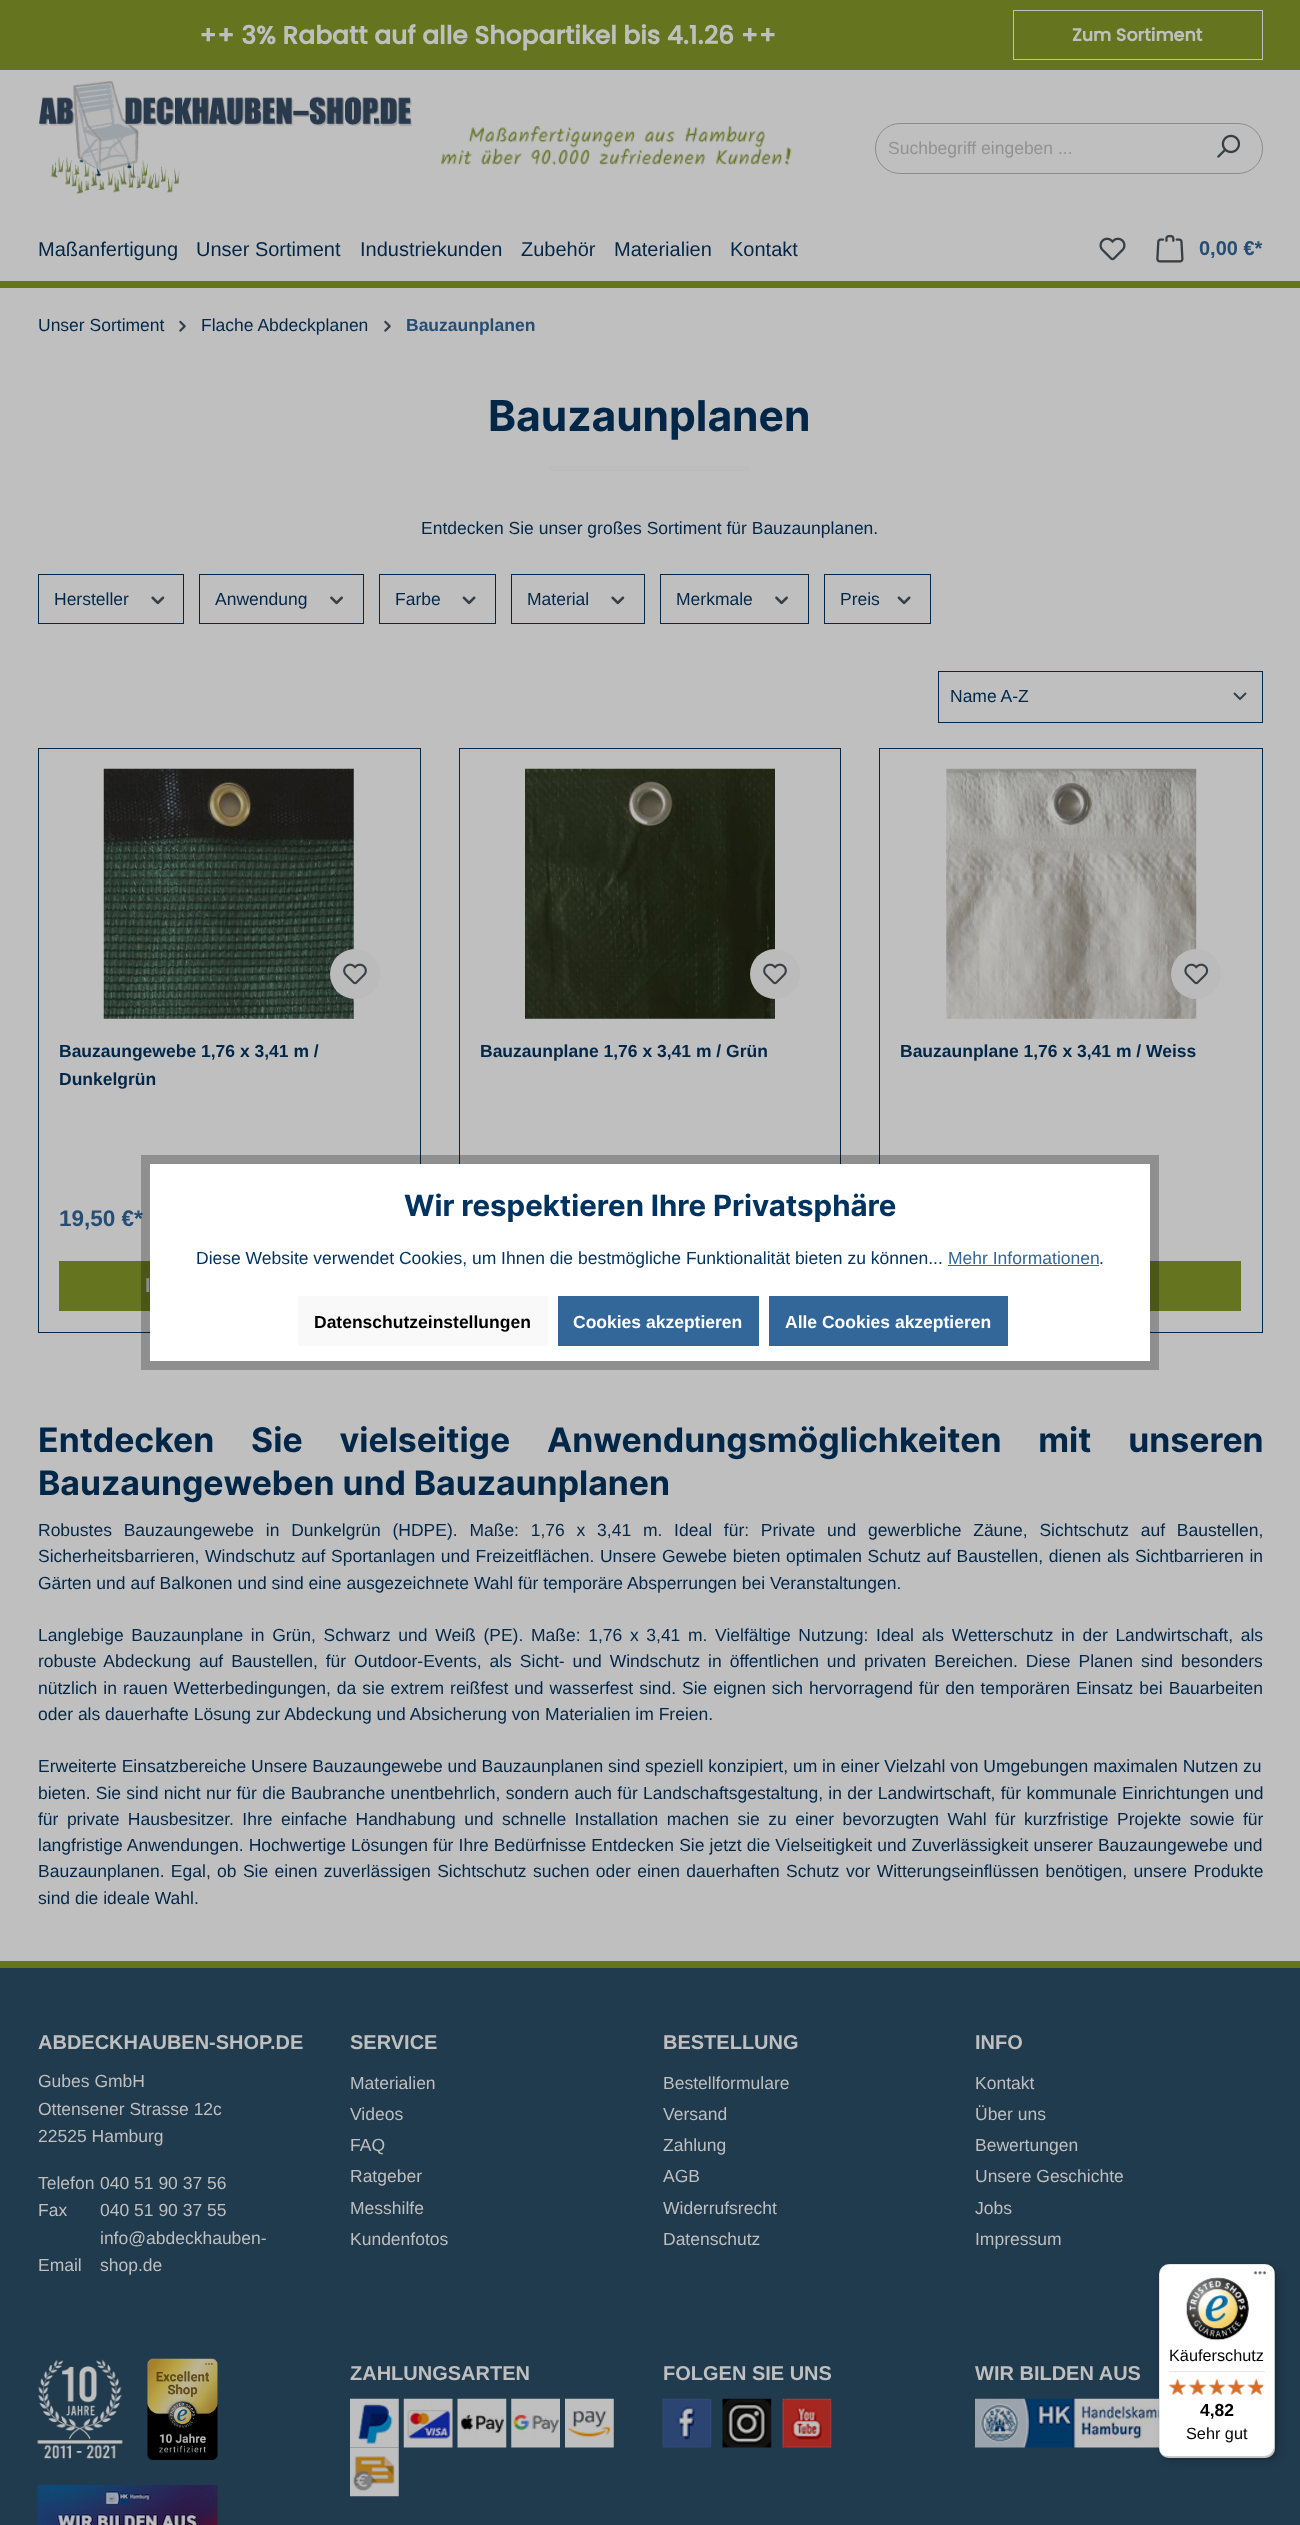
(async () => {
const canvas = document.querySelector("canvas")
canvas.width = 1300
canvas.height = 2525
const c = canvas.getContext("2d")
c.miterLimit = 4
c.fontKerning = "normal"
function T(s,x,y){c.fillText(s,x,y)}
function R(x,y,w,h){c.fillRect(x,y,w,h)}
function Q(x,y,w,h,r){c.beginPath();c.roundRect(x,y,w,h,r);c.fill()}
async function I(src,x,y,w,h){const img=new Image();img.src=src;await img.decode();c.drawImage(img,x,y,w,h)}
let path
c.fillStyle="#bfbfbf"
R(0,0,1300,2525)
c.fillStyle="#65741e"
R(0,0,1300,70)
c.font="bold 25px Poppins"
c.fillStyle="#bfbfbf"
T("++ 3% Rabatt auf alle Shopartikel bis 4.1.26 ++",199,44)
c.strokeStyle="#bfbfbf"
c.strokeRect(1013.5,10.5,249,49)
c.font="bold 17.5px Poppins"
T("Zum Sortiment",1072,41)
await I("1.png",39,81,373,113)
await I("2.png",441,125,351,41)
c.beginPath()
c.roundRect(875.5,123.5,387,50,24.5)
c.strokeStyle="#8c8c8c"
c.stroke()
c.font="17.5px Liberation Sans"
c.fillStyle="#929292"
T("Suchbegriff eingeben ...",888,154)
await I("3.png",1217,134,24,24)
c.fillStyle="#65741e"
R(0,281,1300,7)
c.font="20px Liberation Sans"
c.fillStyle="#002648"
T("Maßanfertigung",38,256)
T("Unser Sortiment",196,256)
T("Industriekunden",360,256)
T("Zubehör",521,256)
T("Materialien",614,256)
T("Kontakt",730,256)
await I("4.png",1099,237,27,24)
await I("5.png",1156,235,28,28)
c.font="bold 20px Liberation Sans"
c.fillStyle="#264d73"
T("0,00 €*",1199,255)
c.font="17.5px Liberation Sans"
c.fillStyle="#002648"
T("Unser Sortiment",38,331)
await I("6.png",179,320,7,12)
T("Flache Abdeckplanen",201,331)
await I("6.png",384,320,7,12)
c.font="bold 17.5px Liberation Sans"
c.fillStyle="#264d73"
T("Bauzaunplanen",406,331)
c.font="bold 42.5px Inter"
c.fillStyle="#002648"
T("Bauzaunplanen",488,431)
c.fillStyle="#bcbcbc"
R(550,466,200,5)
c.font="17.5px Liberation Sans"
c.fillStyle="#002648"
T("Entdecken Sie unser großes Sortiment für Bauzaunplanen.",421,534)
c.strokeStyle="#002648"
c.strokeRect(38.5,574.5,145,49)
T("Hersteller",54,605)
await I("7.png",151,596,14,9)
c.strokeRect(199.5,574.5,164,49)
T("Anwendung",215,605)
await I("8.png",330,596,13,9)
c.strokeRect(379.5,574.5,116,49)
T("Farbe",395,605)
await I("9.png",462,596,14,9)
c.strokeRect(511.5,574.5,133,49)
T("Material",527,605)
await I("7.png",611,596,14,9)
c.strokeRect(660.5,574.5,148,49)
T("Merkmale",676,605)
await I("8.png",775,596,13,9)
c.strokeRect(824.5,574.5,106,49)
T("Preis",840,605)
await I("9.png",897,596,14,9)
path = new Path2D("M1234.5 693.5l5.5 5.5l5.5-5.5")
c.strokeStyle="#383f44"
c.lineWidth=1.9
c.lineCap="round"
c.lineJoin="round"
c.stroke(path)
c.strokeStyle="#002648"
c.lineWidth=1
c.lineJoin="miter"
c.strokeRect(938.5,671.5,324,51)
T("Name A-Z",950,702)
c.strokeRect(38.5,748.5,382,584)
await I("10.png",103,768,251,251)
c.fillStyle="#bbb"
c.beginPath()
c.arc(355,974,25,0,7)
c.fill()
await I("11.png",343,963,24,22)
c.font="bold 17.5px Liberation Sans"
c.fillStyle="#002648"
T("Bauzaungewebe 1,76 x 3,41 m /",59,1057)
T("Dunkelgrün",59,1085)
c.font="bold 22.5px Liberation Sans"
c.fillStyle="#264d73"
T("19,50 €*",59,1226)
c.fillStyle="#65741e"
R(59,1261,91,50)
c.font="bold 20px Liberation Sans"
c.fillStyle="#bfbfbf"
T("I",145,1292)
c.strokeRect(459.5,748.5,381,584)
await I("12.png",525,768,250,251)
c.fillStyle="#bbb"
c.beginPath()
c.arc(775,974,25,0,7)
c.fill()
await I("11.png",763,963,24,22)
c.font="bold 17.5px Liberation Sans"
c.fillStyle="#002648"
T("Bauzaunplane 1,76 x 3,41 m / Grün",480,1057)
c.strokeRect(879.5,748.5,383,584)
await I("13.png",946,768,251,251)
c.fillStyle="#bbb"
c.beginPath()
c.arc(1196,974,25,0,7)
c.fill()
await I("14.png",1184,963,25,22)
c.fillStyle="#002648"
T("Bauzaunplane 1,76 x 3,41 m / Weiss",900,1057)
c.fillStyle="#65741e"
R(1150,1261,91,50)
c.wordSpacing="29px"
c.font="bold 33.8px Inter"
c.fillStyle="#002648"
T("Entdecken Sie vielseitige Anwendungsmöglichkeiten mit unseren",38,1452)
c.wordSpacing="0px"
T("Bauzaungeweben und Bauzaunplanen",38,1495)
c.wordSpacing="6.9px"
c.font="17.5px Liberation Sans"
T("Robustes Bauzaungewebe in Dunkelgrün (HDPE). Maße: 1,76 x 3,41 m. Ideal für: Private und gewerbliche Zäune, Sichtschutz auf Baustellen,",38,1536)
c.wordSpacing="0.75px"
T("Sicherheitsbarrieren, Windschutz auf Sportanlagen und Freizeitflächen. Unsere Gewebe bieten optimalen Schutz auf Baustellen, dienen als Sichtbarrieren in",38,1562)
c.wordSpacing="0px"
T("Gärten und auf Balkonen und sind eine ausgezeichnete Wahl für temporäre Absperrungen bei Veranstaltungen.",38,1589)
c.wordSpacing="2.8px"
T("Langlebige Bauzaunplane in Grün, Schwarz und Weiß (PE). Maße: 1,76 x 3,41 m. Vielfältige Nutzung: Ideal als Wetterschutz in der Landwirtschaft, als",38,1641)
c.wordSpacing="3.1px"
T("robuste Abdeckung auf Baustellen, für Outdoor-Events, als Sicht- und Windschutz in öffentlichen und privaten Bereichen. Diese Planen sind besonders",38,1667)
c.wordSpacing="1.1px"
T("nützlich in rauen Wetterbedingungen, da sie extrem reißfest und wasserfest sind. Sie eignen sich hervorragend für den temporären Einsatz bei Bauarbeiten",38,1694)
c.wordSpacing="0px"
T("oder als dauerhafte Lösung zur Abdeckung und Absicherung von Materialien im Freien.",38,1720)
T("Erweiterte Einsatzbereiche Unsere Bauzaungewebe und Bauzaunplanen sind speziell konzipiert, um in einer Vielzahl von Umgebungen maximalen Nutzen zu",38,1772)
c.wordSpacing="0.4px"
T("bieten. Sie sind nicht nur für die Baubranche unentbehrlich, sondern auch für Landschaftsgestaltung, in der Landwirtschaft, für kommunale Einrichtungen und",38,1799)
c.wordSpacing="3.6px"
T("für private Hausbesitzer. Ihre einfache Handhabung und schnelle Installation machen sie zu einer bevorzugten Wahl für kurzfristige Projekte sowie für",38,1825)
c.wordSpacing="0.25px"
T("langfristige Anwendungen. Hochwertige Lösungen für Ihre Bedürfnisse Entdecken Sie jetzt die Vielseitigkeit und Zuverlässigkeit unserer Bauzaungewebe und",38,1851)
c.wordSpacing="1.5px"
T("Bauzaunplanen. Egal, ob Sie einen zuverlässigen Sichtschutz suchen oder einen dauerhaften Schutz vor Witterungseinflüssen benötigen, unsere Produkte",38,1877)
c.wordSpacing="0px"
T("sind die ideale Wahl.",38,1904)
c.strokeStyle="#00000040"
c.lineWidth=9
c.strokeRect(145.5,1159.5,1009,206)
c.fillStyle="#fff"
R(150,1164,1000,197)
c.font="bold 29.4px Inter"
c.fillStyle="#003360"
T("Wir respektieren Ihre Privatsphäre",404,1216)
c.font="17.5px Liberation Sans"
T("Diese Website verwendet Cookies, um Ihnen die bestmögliche Funktionalität bieten zu können...",196,1264)
c.fillStyle="#369"
T("Mehr Informationen",948,1264)
R(948,1265,151,1)
c.fillStyle="#003360"
T(".",1099,1264)
c.fillStyle="#f9f9f9"
R(298,1296,250,50)
c.font="bold 17.5px Liberation Sans"
c.fillStyle="#000"
T("Datenschutzeinstellungen",314,1328)
c.fillStyle="#369"
R(558,1296,201,50)
c.fillStyle="#fff"
T("Cookies akzeptieren",573,1328)
c.fillStyle="#369"
R(769,1296,239,50)
c.fillStyle="#fff"
T("Alle Cookies akzeptieren",785,1328)
c.fillStyle="#203a4e"
R(0,1968,1300,557)
c.fillStyle="#65741e"
R(0,1961,1300,7)
c.font="bold 20px Liberation Sans"
c.fillStyle="#bfbfbf"
T("ABDECKHAUBEN-SHOP.DE",38,2049)
c.font="17.5px Liberation Sans"
T("Gubes GmbH",38,2087)
T("Ottensener Strasse 12c",38,2115)
T("22525 Hamburg",38,2142)
T("Telefon",38,2189)
T("040 51 90 37 56",100,2189)
T("Fax",38,2216)
T("040 51 90 37 55",100,2216)
T("Email",38,2271)
T("info@abdeckhauben-",100,2244)
T("shop.de",100,2271)
c.font="bold 20px Liberation Sans"
T("SERVICE",350,2049)
c.font="17.5px Liberation Sans"
T("Materialien",350,2089)
T("Videos",350,2120)
T("FAQ",350,2151)
T("Ratgeber",350,2182)
T("Messhilfe",350,2214)
T("Kundenfotos",350,2245)
c.font="bold 20px Liberation Sans"
T("BESTELLUNG",663,2049)
c.font="17.5px Liberation Sans"
T("Bestellformulare",663,2089)
T("Versand",663,2120)
T("Zahlung",663,2151)
T("AGB",663,2182)
T("Widerrufsrecht",663,2214)
T("Datenschutz",663,2245)
c.font="bold 20px Liberation Sans"
T("INFO",975,2049)
c.font="17.5px Liberation Sans"
T("Kontakt",975,2089)
T("Über uns",975,2120)
T("Bewertungen",975,2151)
T("Unsere Geschichte",975,2182)
T("Jobs",975,2214)
T("Impressum",975,2245)
await I("15.png",37,2359,86,100)
await I("16.png",147,2358,71,102)
await I("17.png",37,2485,181,40)
c.font="bold 20px Liberation Sans"
T("ZAHLUNGSARTEN",350,2380)
await I("18.png",350,2398,49,50)
await I("19.png",403,2398,50,50)
await I("20.png",457,2398,50,50)
await I("21.png",511,2398,49,50)
await I("22.png",565,2398,49,50)
await I("23.png",350,2447,49,50)
T("FOLGEN SIE UNS",663,2380)
await I("24.png",662,2398,50,50)
await I("25.png",722,2398,50,50)
await I("26.png",782,2398,50,50)
T("WIR BILDEN AUS",975,2380)
await I("27.png",975,2398,184,50)
c.fillStyle="#00000026"
c.filter="blur(5px)"
c.beginPath()
c.roundRect(1163,2268,116,193,10)
c.fill()
c.filter="none"
c.filter="blur(1px)"
c.beginPath()
c.roundRect(1160,2265,116,194,10)
c.fill()
c.filter="none"
c.fillStyle="#fff"
Q(1159,2264,116,194,10)
c.fillStyle="#0000001a"
path = new Path2D("M1170 2265h96c2 0 4 0 5 1c-1-1-4-2-6-2h-96c-6 0-10 4-10 10v174c0 3 1 6 4 8c-2-2-3-5-3-7v-174c0-6 4-10 10-10z")
c.fill(path)
c.fillStyle="#00000033"
path = new Path2D("M1160 2452c2 4 5 6 9 6h96c6 0 10-4 10-10v-174c0-2-1-4-2-6c1 1 1 3 1 4v174c0 6-5 10-10 10h-96c-3 0-6-1-8-4z")
c.fill(path)
c.fillStyle="#32323233"
path = new Path2D("M1161 2455c2 2 5 3 8 3h96c6 0 10-4 10-10v-174c0-2-1-5-2-6c1 1 1 3 1 5v174c0 5-4 10-10 10h-96c-3 0-5-1-7-2z")
c.fill(path)
c.fillStyle="#ffffff4d"
path = new Path2D("M1160 2453c2 3 5 5 9 5h96c6 0 10-4 10-10v-174c0-3-1-6-4-8c2 2 3 5 3 7v174c0 5-4 10-10 10h-96c-3 0-6-2-8-4z")
c.fill(path)
await I("28.png",1253,2271,13,4)
await I("29.png",1186,2277,63,64)
c.font="16.25px Liberation Sans"
c.fillStyle="#000"
T("Käuferschutz",1169,2361)
c.fillStyle="#e5e5e5"
R(1169,2371,96,1)
await I("35.png",1169,2379,17,16)
await I("30.png",1168,2378,18,17)
await I("36.png",1189,2379,17,16)
await I("31.png",1188,2378,19,17)
await I("37.png",1209,2379,16,16)
await I("32.png",1208,2378,17,17)
await I("38.png",1227,2379,18,16)
await I("33.png",1227,2378,18,17)
await I("39.png",1247,2379,18,16)
await I("34.png",1247,2378,16,17)
c.font="bold 17.5px Liberation Sans"
c.fillStyle="#000"
T("4,82",1200,2416)
c.font="16.25px Liberation Sans"
T("Sehr gut",1186,2439)
})()
